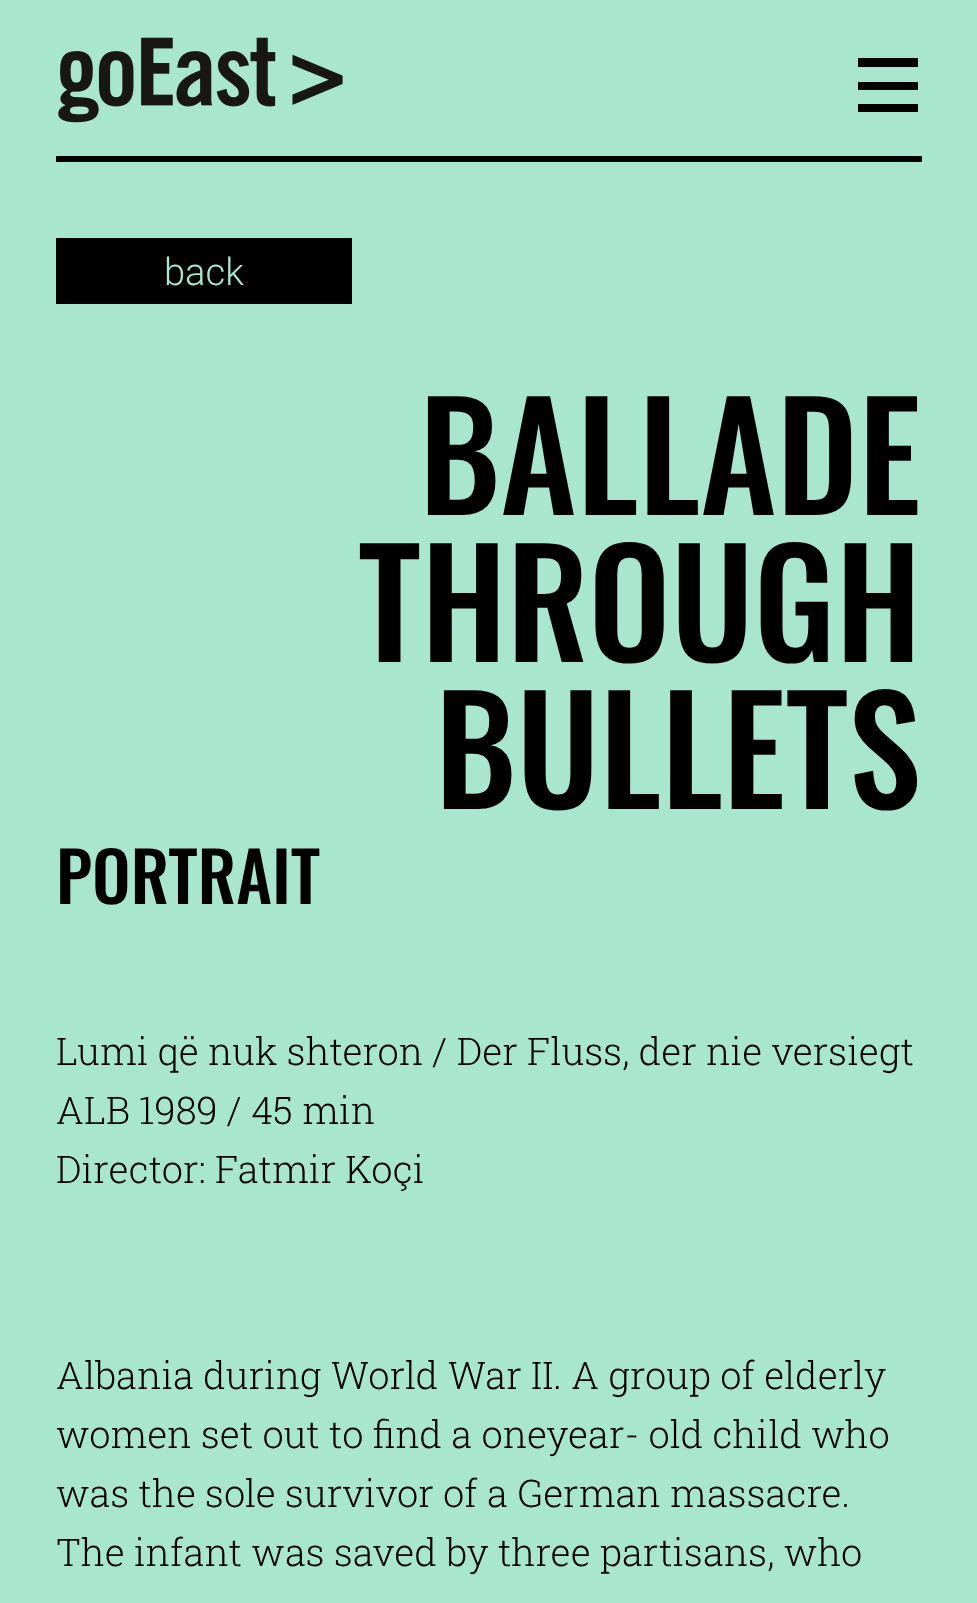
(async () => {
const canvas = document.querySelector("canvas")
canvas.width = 977
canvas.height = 1603
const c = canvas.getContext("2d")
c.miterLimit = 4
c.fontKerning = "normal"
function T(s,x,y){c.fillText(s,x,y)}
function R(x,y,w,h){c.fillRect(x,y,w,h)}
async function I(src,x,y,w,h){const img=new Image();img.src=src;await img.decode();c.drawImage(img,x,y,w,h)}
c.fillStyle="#a8e6cf"
R(0,0,977,1603)
c.fillStyle="#000"
R(56,156,866,6)
await I("1.png",58,37,285,86)
R(858,58,60,9)
R(858,82,60,8)
R(858,104,60,8)
R(56,238,296,66)
c.font="300 38.1px Roboto"
c.fillStyle="#a8e6cf"
T("back",164,285)
c.font="500 146.5px Oswald"
c.fillStyle="#000"
T("BALLADE",419,515)
T("THROUGH",358,662)
T("BULLETS",435,809)
c.font="500 68.5px Oswald"
T("PORTRAIT",56,904)
c.font="300 38.1px Roboto Slab"
T("Lumi që nuk shteron / Der Fluss, der nie versiegt",56,1065)
T("ALB 1989 / 45 min",56,1124)
T("Director: Fatmir Koçi",56,1183)
T("Albania during World War II. A group of elderly",56,1389)
T("women set out to find a oneyear- old child who",56,1448)
T("was the sole survivor of a German massacre.",56,1507)
T("The infant was saved by three partisans, who",56,1566)
})()
